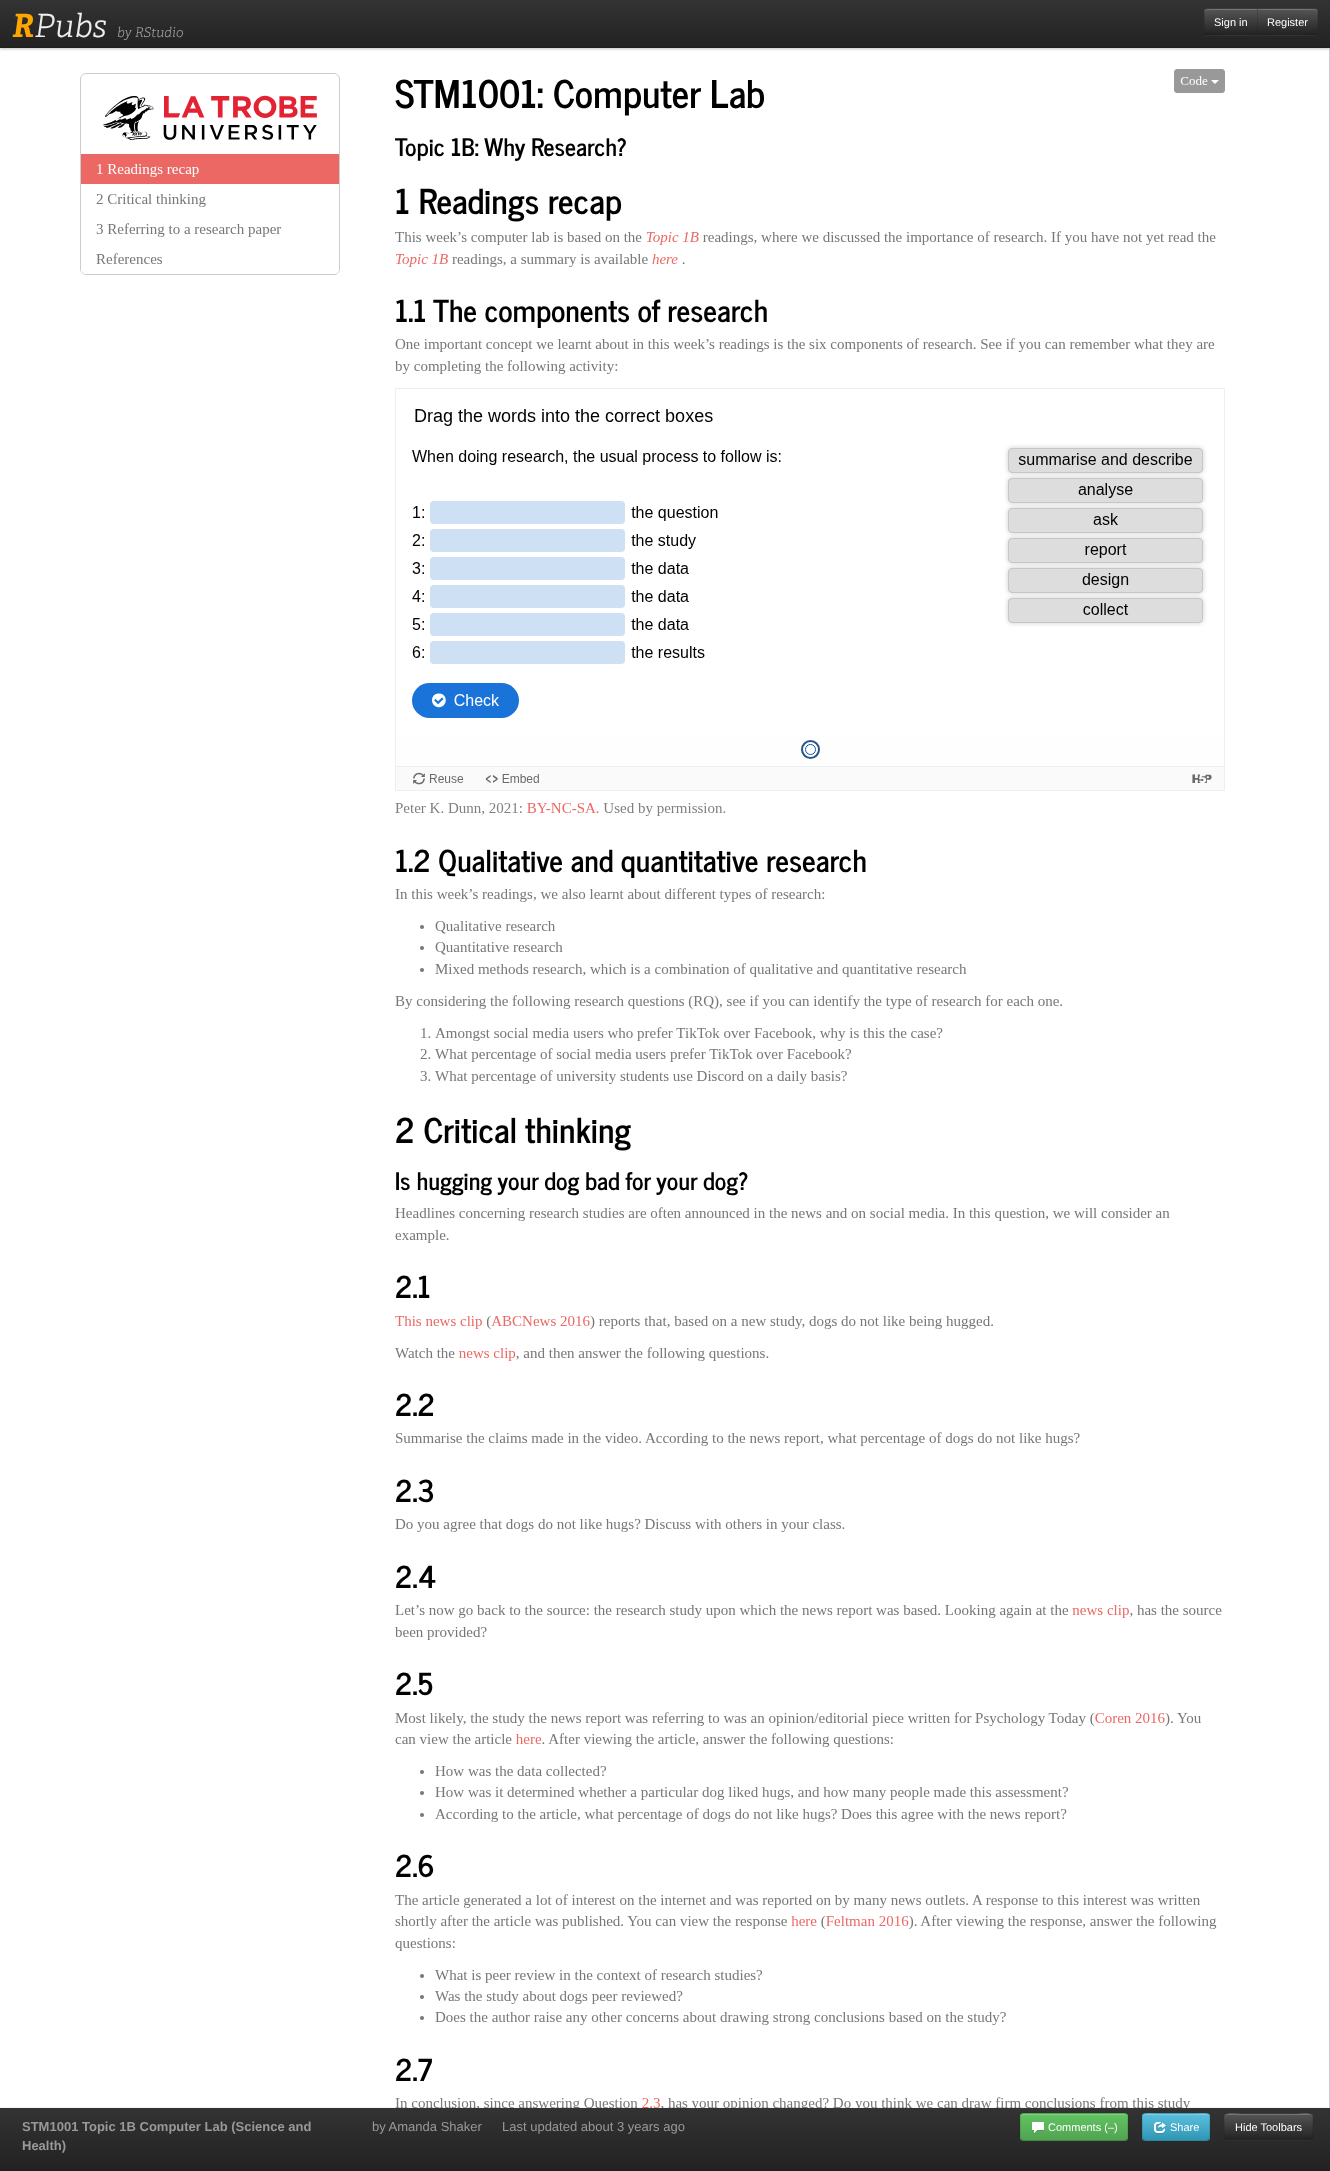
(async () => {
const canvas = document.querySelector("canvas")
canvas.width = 1330
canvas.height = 2171
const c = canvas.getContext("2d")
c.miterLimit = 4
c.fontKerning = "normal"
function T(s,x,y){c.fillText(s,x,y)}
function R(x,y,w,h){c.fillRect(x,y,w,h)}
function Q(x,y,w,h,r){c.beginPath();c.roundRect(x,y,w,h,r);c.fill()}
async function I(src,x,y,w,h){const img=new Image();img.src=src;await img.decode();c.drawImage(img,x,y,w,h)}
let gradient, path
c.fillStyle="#fff"
R(0,0,1330,2171)
await I("1.png",0,48,1329,2060)
c.fillStyle="#ccc"
R(1329,48,1,2060)
c.fillStyle="#00000040"
c.filter="blur(1.5px)"
c.beginPath()
c.rect(0,1,1330,48)
c.fill()
c.filter="none"
gradient = c.createLinearGradient(665,0,665,48)
gradient.addColorStop(0,"#333")
gradient.addColorStop(1,"#222")
c.fillStyle = gradient
R(0,0,1330,47)
c.fillStyle="#1f1f1f"
R(0,47,1330,1)
c.font="italic bold 32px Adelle"
c.fillStyle="#ffa500"
T("R",12,37)
c.font="italic 300 32px Adelle"
c.fillStyle="#eee"
T("Pubs",34,37)
c.font="italic 300 13.5px Adelle"
c.fillStyle="#999"
T("by RStudio",117,37)
c.fillStyle="#414141"
c.beginPath()
c.roundRect(1204,8,54,28,[4,0,0,4])
c.fill()
c.save()
c.beginPath()
c.roundRect(1204,8,54,28,[4,0,0,4])
c.clip()
gradient = c.createLinearGradient(1231,9,1231,35)
gradient.addColorStop(0,"#555")
gradient.addColorStop(1,"#222")
c.fillStyle = gradient
R(1204,9,53,26)
c.restore()
c.fillStyle="#767676"
path = new Path2D("M1208 10h49v-1h-49c-2 0-3 1-3 3v1c0-2 1-3 3-3z")
c.fill(path)
c.fillStyle="#0000001a"
path = new Path2D("M1208 8l-3 1l1 1c2-2 45-1 51-1l1-1z")
c.fill(path)
c.fillStyle="#00000040"
path = new Path2D("M1258 36l-1-1c-6 0-49 1-51-1l-1 1l3 1z")
c.fill(path)
c.fillStyle="#0000001a"
path = new Path2D("M1204 12v20c0 1 .5 2 1 3l1-1c-1 0-1-1-1-2v-20c0-1 0-2 1-2l-1-1c-.5 1-1 2-1 3z")
c.fill(path)
c.font="11px Liberation Sans"
c.fillStyle="#fff"
T("Sign in",1214,26)
c.fillStyle="#414141"
c.beginPath()
c.roundRect(1257,8,61,28,[0,4,4,0])
c.fill()
c.save()
c.beginPath()
c.roundRect(1257,8,61,28,[0,4,4,0])
c.clip()
gradient = c.createLinearGradient(1288,9,1288,35)
gradient.addColorStop(0,"#555")
gradient.addColorStop(1,"#222")
c.fillStyle = gradient
R(1257,9,61,26)
c.restore()
c.fillStyle="#767676"
path = new Path2D("M1258 10h56c2 0 3 1 3 3v-1c0-2-1-3-3-3h-56z")
c.fill(path)
c.fillStyle="#0000001a"
path = new Path2D("M1257 8l1 1c7 0 56-1 58 1l1-1l-3-1z")
c.fill(path)
path = new Path2D("M1318 32v-20c0-1-.5-2-1-3l-1 1c1 0 1 1 1 2v20c0 1 0 2-1 2l1 1c.5-1 1-2 1-3z")
c.fill(path)
c.fillStyle="#00000040"
path = new Path2D("M1314 36l3-1l-1-1c-2 2-51 1-58 1l-1 1z")
c.fill(path)
c.fillStyle="#0000001a"
path = new Path2D("M1257 8v28l1-1v-26z")
c.fill(path)
c.fillStyle="#fff"
T("Register",1267,26)
c.fillStyle="#00000040"
c.filter="blur(1.5px)"
c.beginPath()
c.rect(0,2109,1330,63)
c.fill()
c.filter="none"
gradient = c.createLinearGradient(665,2108,665,2171)
gradient.addColorStop(0,"#333")
gradient.addColorStop(1,"#222")
c.fillStyle = gradient
R(0,2108,1330,62)
c.fillStyle="#1f1f1f"
R(0,2170,1330,1)
c.font="bold 13px Liberation Sans"
c.fillStyle="#999"
T("STM1001 Topic 1B Computer Lab (Science and",22,2131)
T("Health)",22,2150)
c.font="13px Liberation Sans"
T("by Amanda Shaker",372,2131)
T("Last updated about 3 years ago",502,2131)
c.fillStyle="#5bb75b"
Q(1020,2113,108,28,4)
c.save()
c.beginPath()
c.roundRect(1020,2113,108,28,4)
c.clip()
gradient = c.createLinearGradient(1074,2114,1074,2140)
gradient.addColorStop(0,"#62c462")
gradient.addColorStop(1,"#51a351")
c.fillStyle = gradient
R(1020,2114,108,26)
c.restore()
c.fillStyle="#81cf81"
path = new Path2D("M1024 2115h101c1 0 2 2 2 3v-1c0-2-1-3-3-3h-100c-2 0-3 1-3 3c0-1 1-2 3-2zm103 20v3z")
c.fill(path,"evenodd")
path = new Path2D("M1126.5 2139.5l-2 1h-84h-16.5l-2.5-1")
c.strokeStyle="#00000040"
c.stroke(path)
path = new Path2D("M1021.5 2139.5c-2-2-1-6.5-1-9c0-21-3-17 20-17h67c23 0 20-4 20 17c0 2.5 1 7-1 9")
c.strokeStyle="#0000001a"
c.stroke(path)
await I("2.png",1032,2122,12,12)
c.font="11px Liberation Sans"
c.fillStyle="#fff"
T("Comments (–)",1048,2131)
c.fillStyle="#49afcd"
Q(1142,2113,68,28,4)
c.save()
c.beginPath()
c.roundRect(1142,2113,68,28,4)
c.clip()
gradient = c.createLinearGradient(1176,2114,1176,2140)
gradient.addColorStop(0,"#5bc0de")
gradient.addColorStop(1,"#2f96b4")
c.fillStyle = gradient
R(1142,2114,68,26)
c.restore()
c.fillStyle="#ffffff33"
path = new Path2D("M1146 2115h60c2 0 3 1 3 3c0-7-9-4-13-4h-40c-4 0-13-3-13 4c0-2 1-3 3-3z")
c.fill(path)
path = new Path2D("M1208.5 2139.5l-2 1h-61l-2-1")
c.strokeStyle="#00000040"
c.stroke(path)
path = new Path2D("M1143.5 2139.5c-2-2.5-1-10-1-12.5c0-15-2-13.5 13.5-13.5h40c15.5 0 13.5-1.5 13.5 13.5c0 2.5 1 10-1 12.5")
c.strokeStyle="#0000001a"
c.stroke(path)
await I("3.png",1154,2122,12,12)
c.fillStyle="#fff"
T("Share",1170,2131)
c.fillStyle="#414141"
Q(1224,2113,89,28,4)
c.save()
c.beginPath()
c.roundRect(1224,2113,89,28,4)
c.clip()
gradient = c.createLinearGradient(1269,2114,1269,2140)
gradient.addColorStop(0,"#555")
gradient.addColorStop(1,"#222")
c.fillStyle = gradient
R(1224,2114,89,26)
c.restore()
c.fillStyle="#ffffff33"
path = new Path2D("M1228 2115h81c2 0 3 1 3 3c0-8-13-4-16-4h-54c-4 0-17-4-17 4c0-2 1-3 3-3z")
c.fill(path)
path = new Path2D("M1311.5 2139.5l-2 1h-82l-2-1")
c.strokeStyle="#00000040"
c.stroke(path)
path = new Path2D("M1225.5 2139.5c-2-2-1-6.5-1-9c0-19.5-3.5-17 17-17h54c20.5 0 17-2.5 17 17c0 2.5 1 7-1 9")
c.strokeStyle="#0000001a"
c.stroke(path)
c.fillStyle="#fff"
T("Hide Toolbars",1235,2131)
})()
